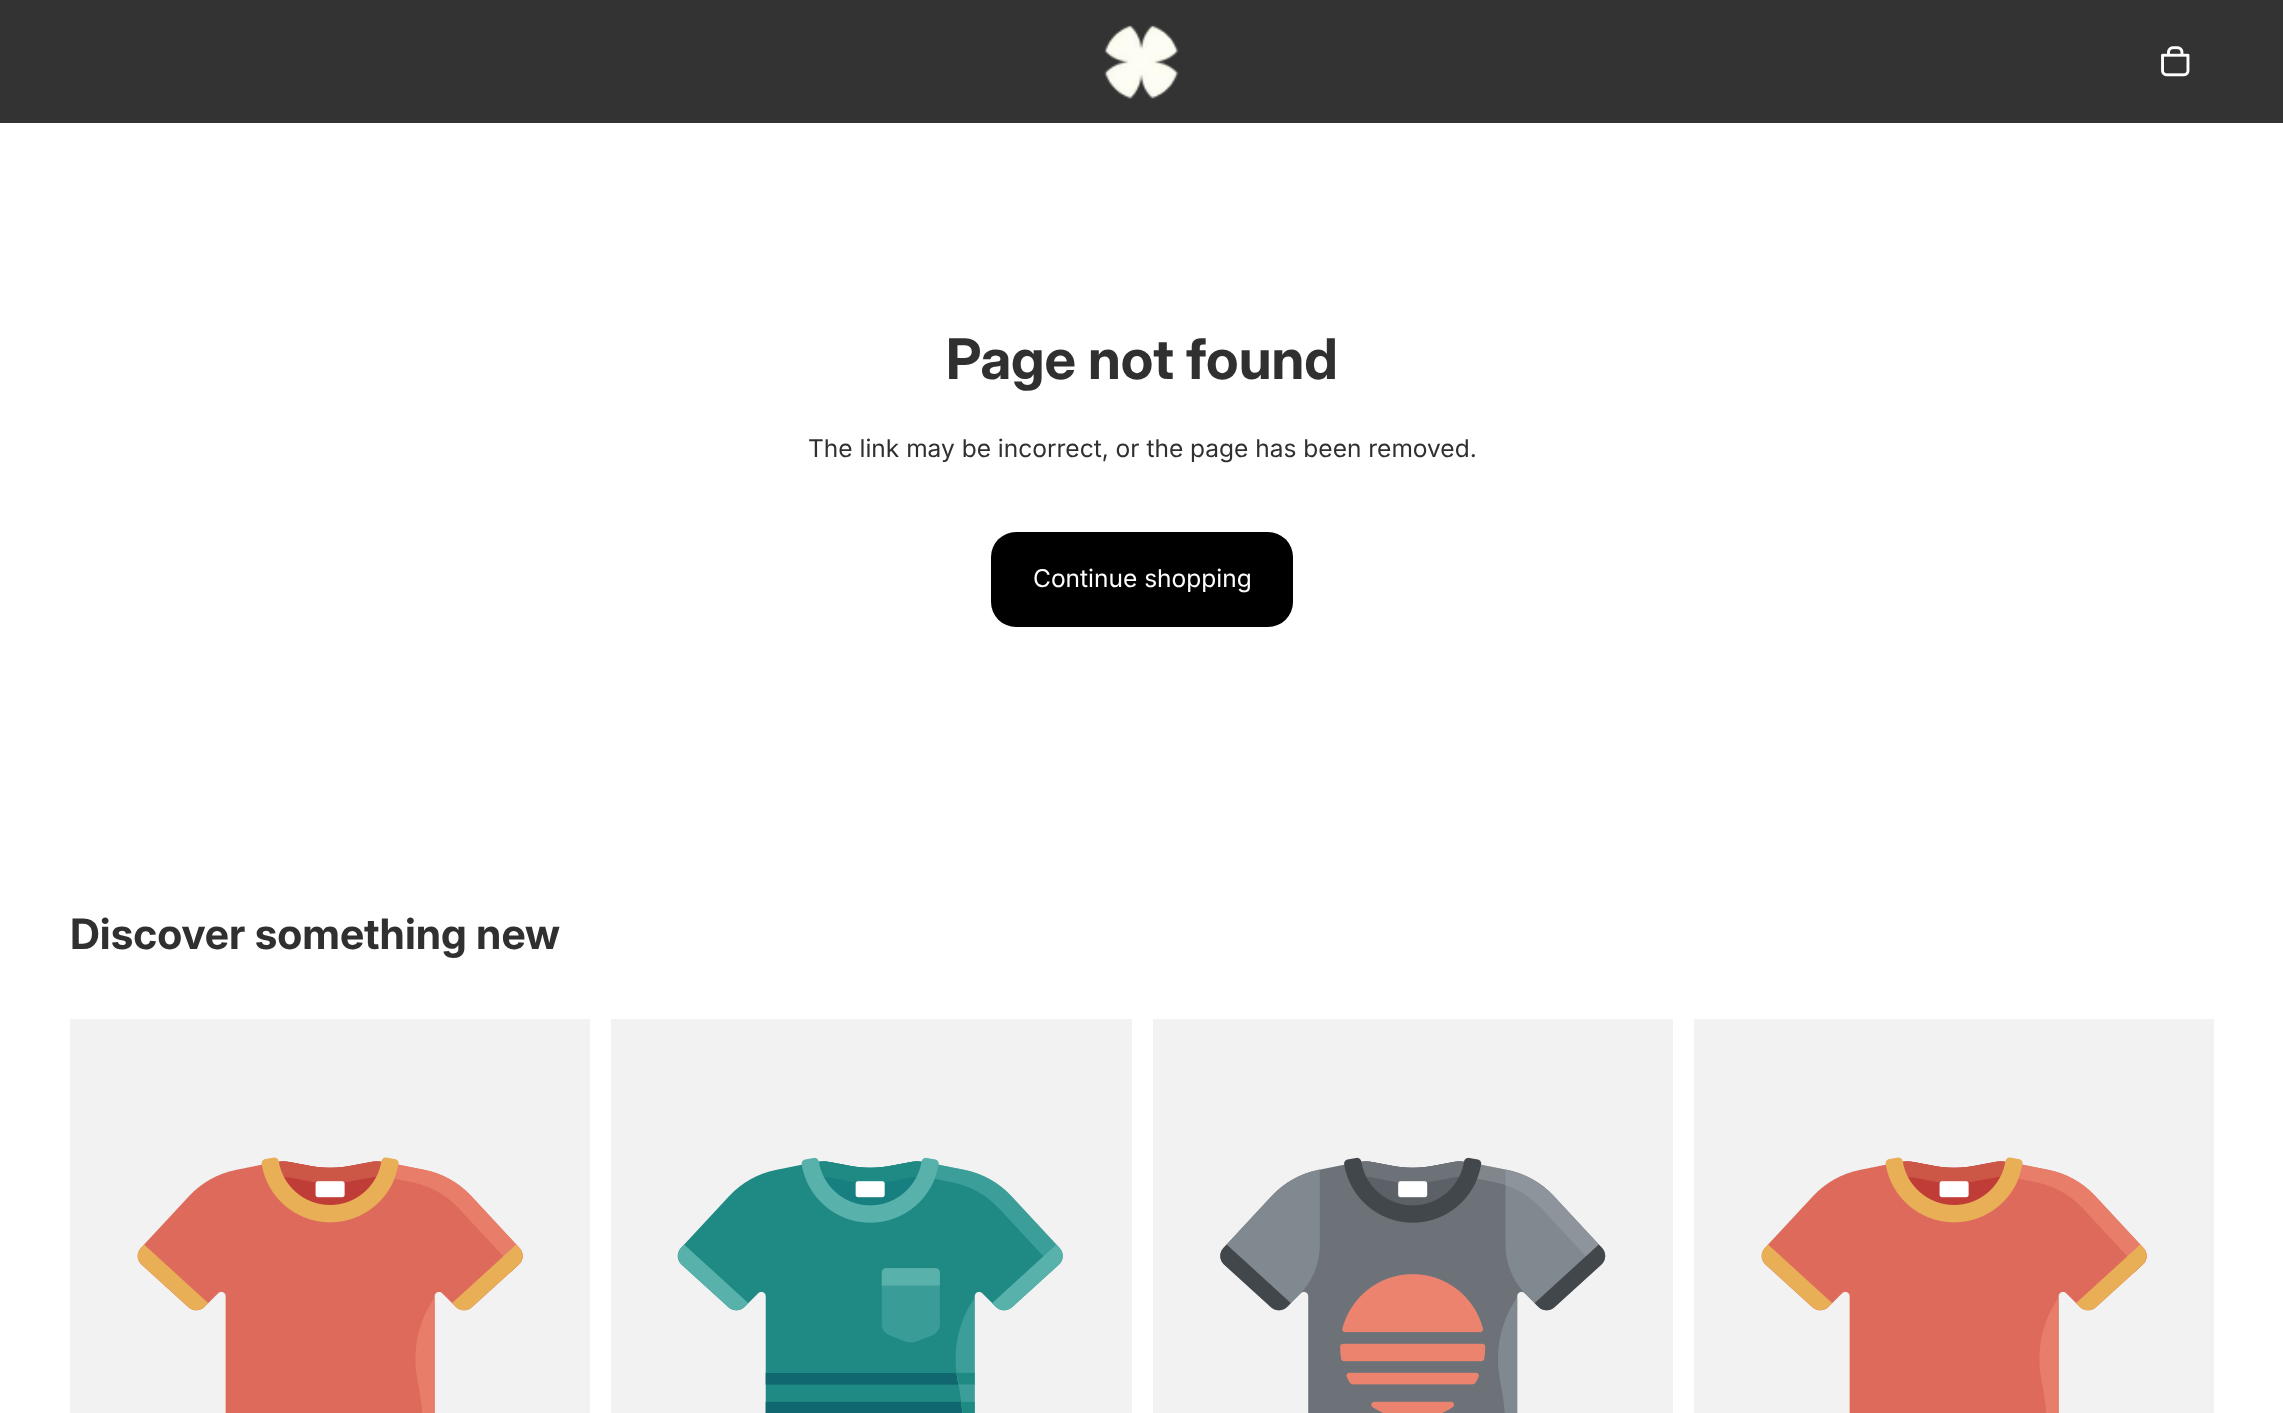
(async () => {
const canvas = document.querySelector("canvas")
canvas.width = 2283
canvas.height = 1413
const c = canvas.getContext("2d")
c.miterLimit = 4
c.fontKerning = "normal"
function T(s,x,y){c.fillText(s,x,y)}
function R(x,y,w,h){c.fillRect(x,y,w,h)}
function Q(x,y,w,h,r){c.beginPath();c.roundRect(x,y,w,h,r);c.fill()}
async function I(src,x,y,w,h){const img=new Image();img.src=src;await img.decode();c.drawImage(img,x,y,w,h)}
c.fillStyle="#fff"
R(0,0,2283,1413)
c.fillStyle="#333"
R(0,0,2283,123)
await I("1.png",1104,25,75,74)
await I("2.png",2161,46,29,31)
c.font="bold 56px Inter"
c.fillStyle="#303030"
T("Page not found",946,379)
c.font="24.5px Inter"
T("The link may be incorrect, or the page has been removed.",808,457)
c.fillStyle="#000"
Q(991,532,302,95,25)
c.fillStyle="#fff"
T("Continue shopping",1033,587)
c.font="bold 42px 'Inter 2'"
c.fillStyle="#303030"
T("Discover something new",70,949)
await I("3.png",70,1019,520,394)
await I("4.png",611,1019,521,394)
await I("5.png",1153,1019,520,394)
await I("3.png",1694,1019,520,394)
})()
